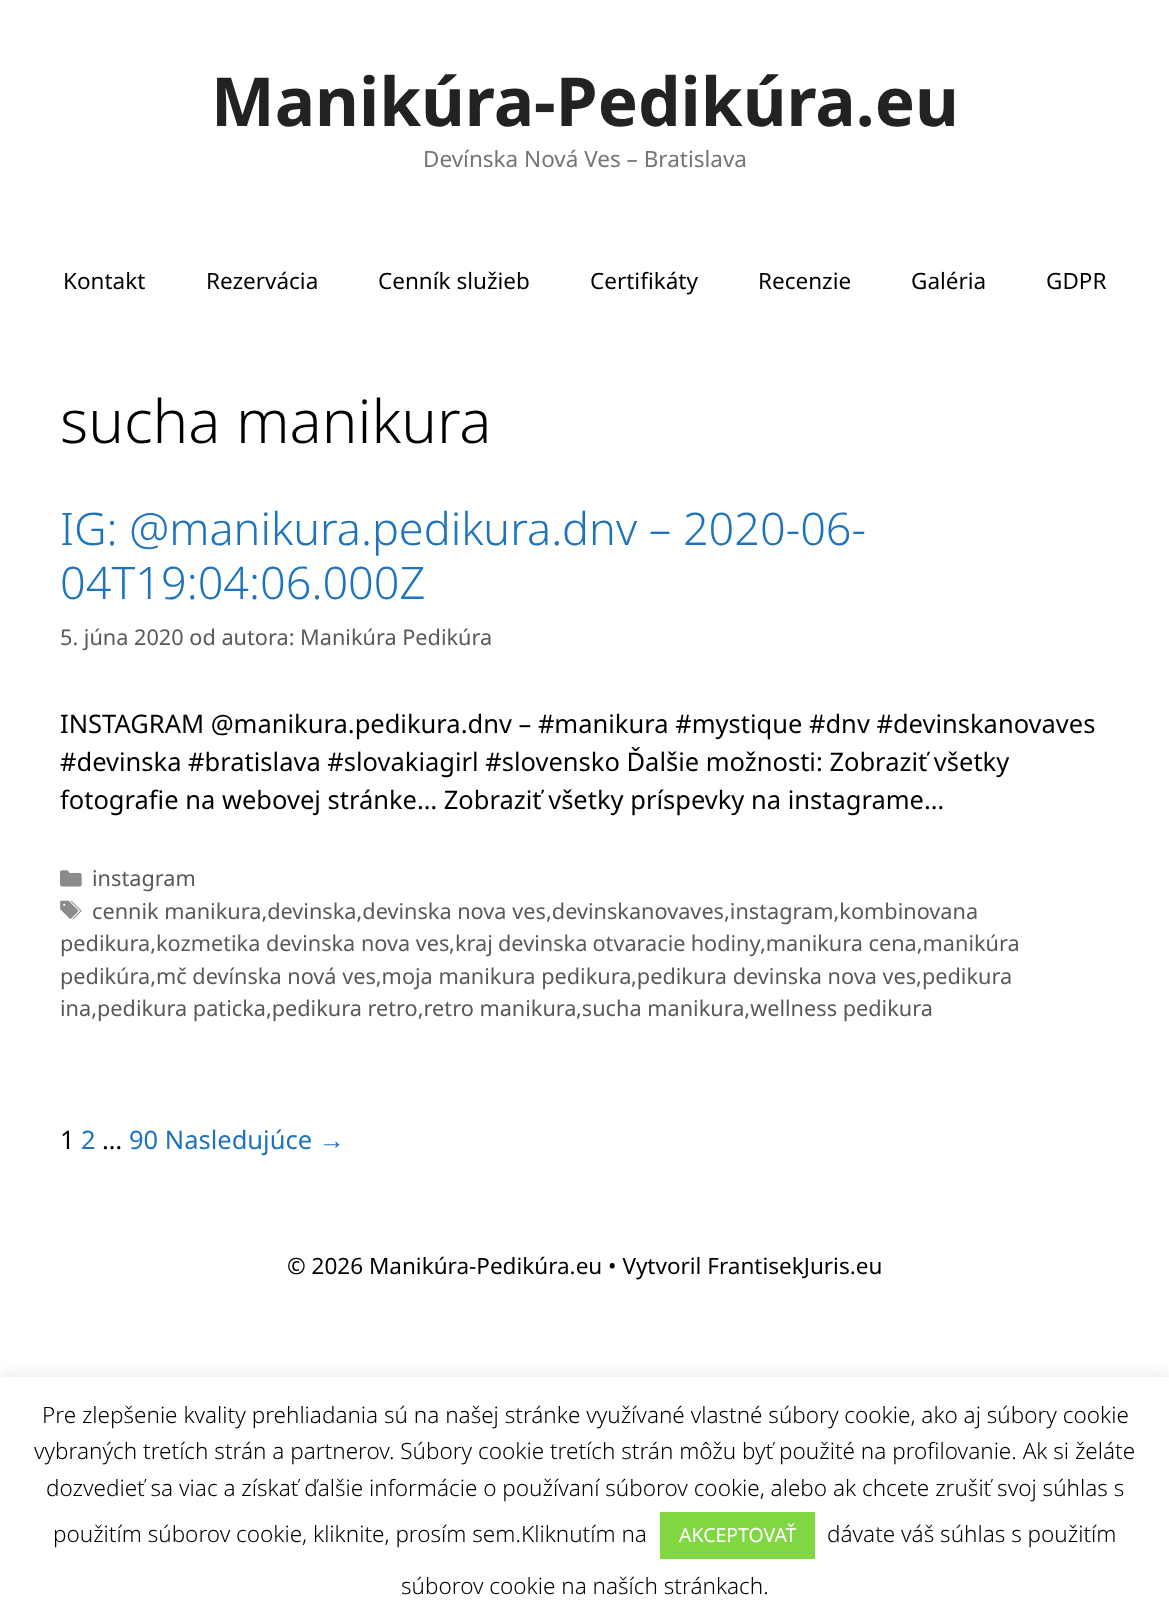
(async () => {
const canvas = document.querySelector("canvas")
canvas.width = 1169
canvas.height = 1620
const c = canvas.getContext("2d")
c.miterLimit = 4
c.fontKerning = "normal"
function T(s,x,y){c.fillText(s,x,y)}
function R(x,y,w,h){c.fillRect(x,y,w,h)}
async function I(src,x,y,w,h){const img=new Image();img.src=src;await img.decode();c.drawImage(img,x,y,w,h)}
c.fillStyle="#fff"
R(0,0,1169,1620)
c.font="bold 67.5px Noto Sans"
c.fillStyle="#222"
T("Manikúra-Pedikúra.eu",211,126)
c.font="22.5px Noto Sans"
c.fillStyle="#757575"
T("Devínska Nová Ves – Bratislava",423,167)
c.fillStyle="#000"
T("Kontakt",63,289)
T("Rezervácia",206,289)
T("Cenník služieb",378,289)
T("Certifikáty",590,289)
T("Recenzie",758,289)
T("Galéria",911,289)
T("GDPR",1046,289)
c.font="300 60px Noto Sans"
T("sucha manikura",60,443)
c.font="300 45px Noto Sans"
c.fillStyle="#1e73be"
T("IG: @manikura.pedikura.dnv – 2020-06-",60,545)
T("04T19:04:06.000Z",60,599)
c.font="21.7px Noto Sans"
c.fillStyle="#595959"
T("5. júna 2020 od autora: Manikúra Pedikúra",60,645)
c.font="25.5px Noto Sans"
c.fillStyle="#000"
T("INSTAGRAM @manikura.pedikura.dnv – #manikura #mystique #dnv #devinskanovaves",60,733)
T("#devinska #bratislava #slovakiagirl #slovensko Ďalšie možnosti: Zobraziť všetky",60,771)
T("fotografie na webovej stránke… Zobraziť všetky príspevky na instagrame…",60,809)
await I("1.png",60,870,22,17)
c.font="21.7px Noto Sans"
c.fillStyle="#595959"
T("instagram",92,886)
await I("2.png",60,900,22,19)
T("cennik manikura,devinska,devinska nova ves",92,919)
T(",devinskanovaves,instagram,kombinovana",546,919)
T("pedikura,kozmetika devinska nova ves",60,951)
T(",",449,951)
c.wordSpacing="-0.5px"
T("kraj devinska otvaracie hodiny",455,951)
c.wordSpacing="0px"
T(",manikura cena,manikúra",760,951)
T("pedikúra,mč devínska nová ves,moja manikura pedikura",60,984)
T(",pedikura devinska nova ves,pedikura",631,984)
T("ina,pedikura paticka,pedikura retro,retro manikura",60,1016)
T(",sucha manikura,wellness pedikura",576,1016)
c.font="25.5px Noto Sans"
c.fillStyle="#000"
T("1",60,1149)
c.fillStyle="#1e73be"
T("2",81,1149)
c.fillStyle="#000"
T("…",102,1149)
c.fillStyle="#1e73be"
T("90 Nasledujúce",129,1149)
c.font="25.5px Liberation Sans"
T("→",319,1149)
c.font="22.5px Noto Sans"
c.fillStyle="#000"
T("© 2026 Manikúra-Pedikúra.eu • Vytvoril FrantisekJuris.eu",287,1274)
c.save()
c.beginPath()
c.rect(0,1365,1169,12)
c.clip()
c.fillStyle="#acabab4d"
c.filter="blur(7.5px)"
c.beginPath()
c.rect(0,1376,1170,243)
c.fill()
c.filter="none"
c.restore()
c.font="300 22.5px Noto Sans"
T("Pre zlepšenie kvality prehliadania sú na našej stránke využívané vlastné súbory cookie, ako aj súbory cookie",42,1423)
T("vybraných tretích strán a partnerov. Súbory cookie tretích strán môžu byť použité na profilovanie. Ak si želáte",34,1459)
T("dozvedieť sa viac a získať ďalšie informácie o používaní súborov cookie, alebo ak chcete zrušiť svoj súhlas s",46,1496)
T("použitím súborov cookie, kliknite, prosím sem.Kliknutím na",53,1542)
c.fillStyle="#81d742"
R(660,1512,155,47)
c.font="19.5px Noto Sans"
c.fillStyle="#fff"
T("AKCEPTOVAŤ",679,1542)
c.font="300 22.5px Noto Sans"
c.fillStyle="#000"
T("dávate váš súhlas s použitím",827,1542)
T("súborov cookie na naších stránkach.",401,1594)
})()
